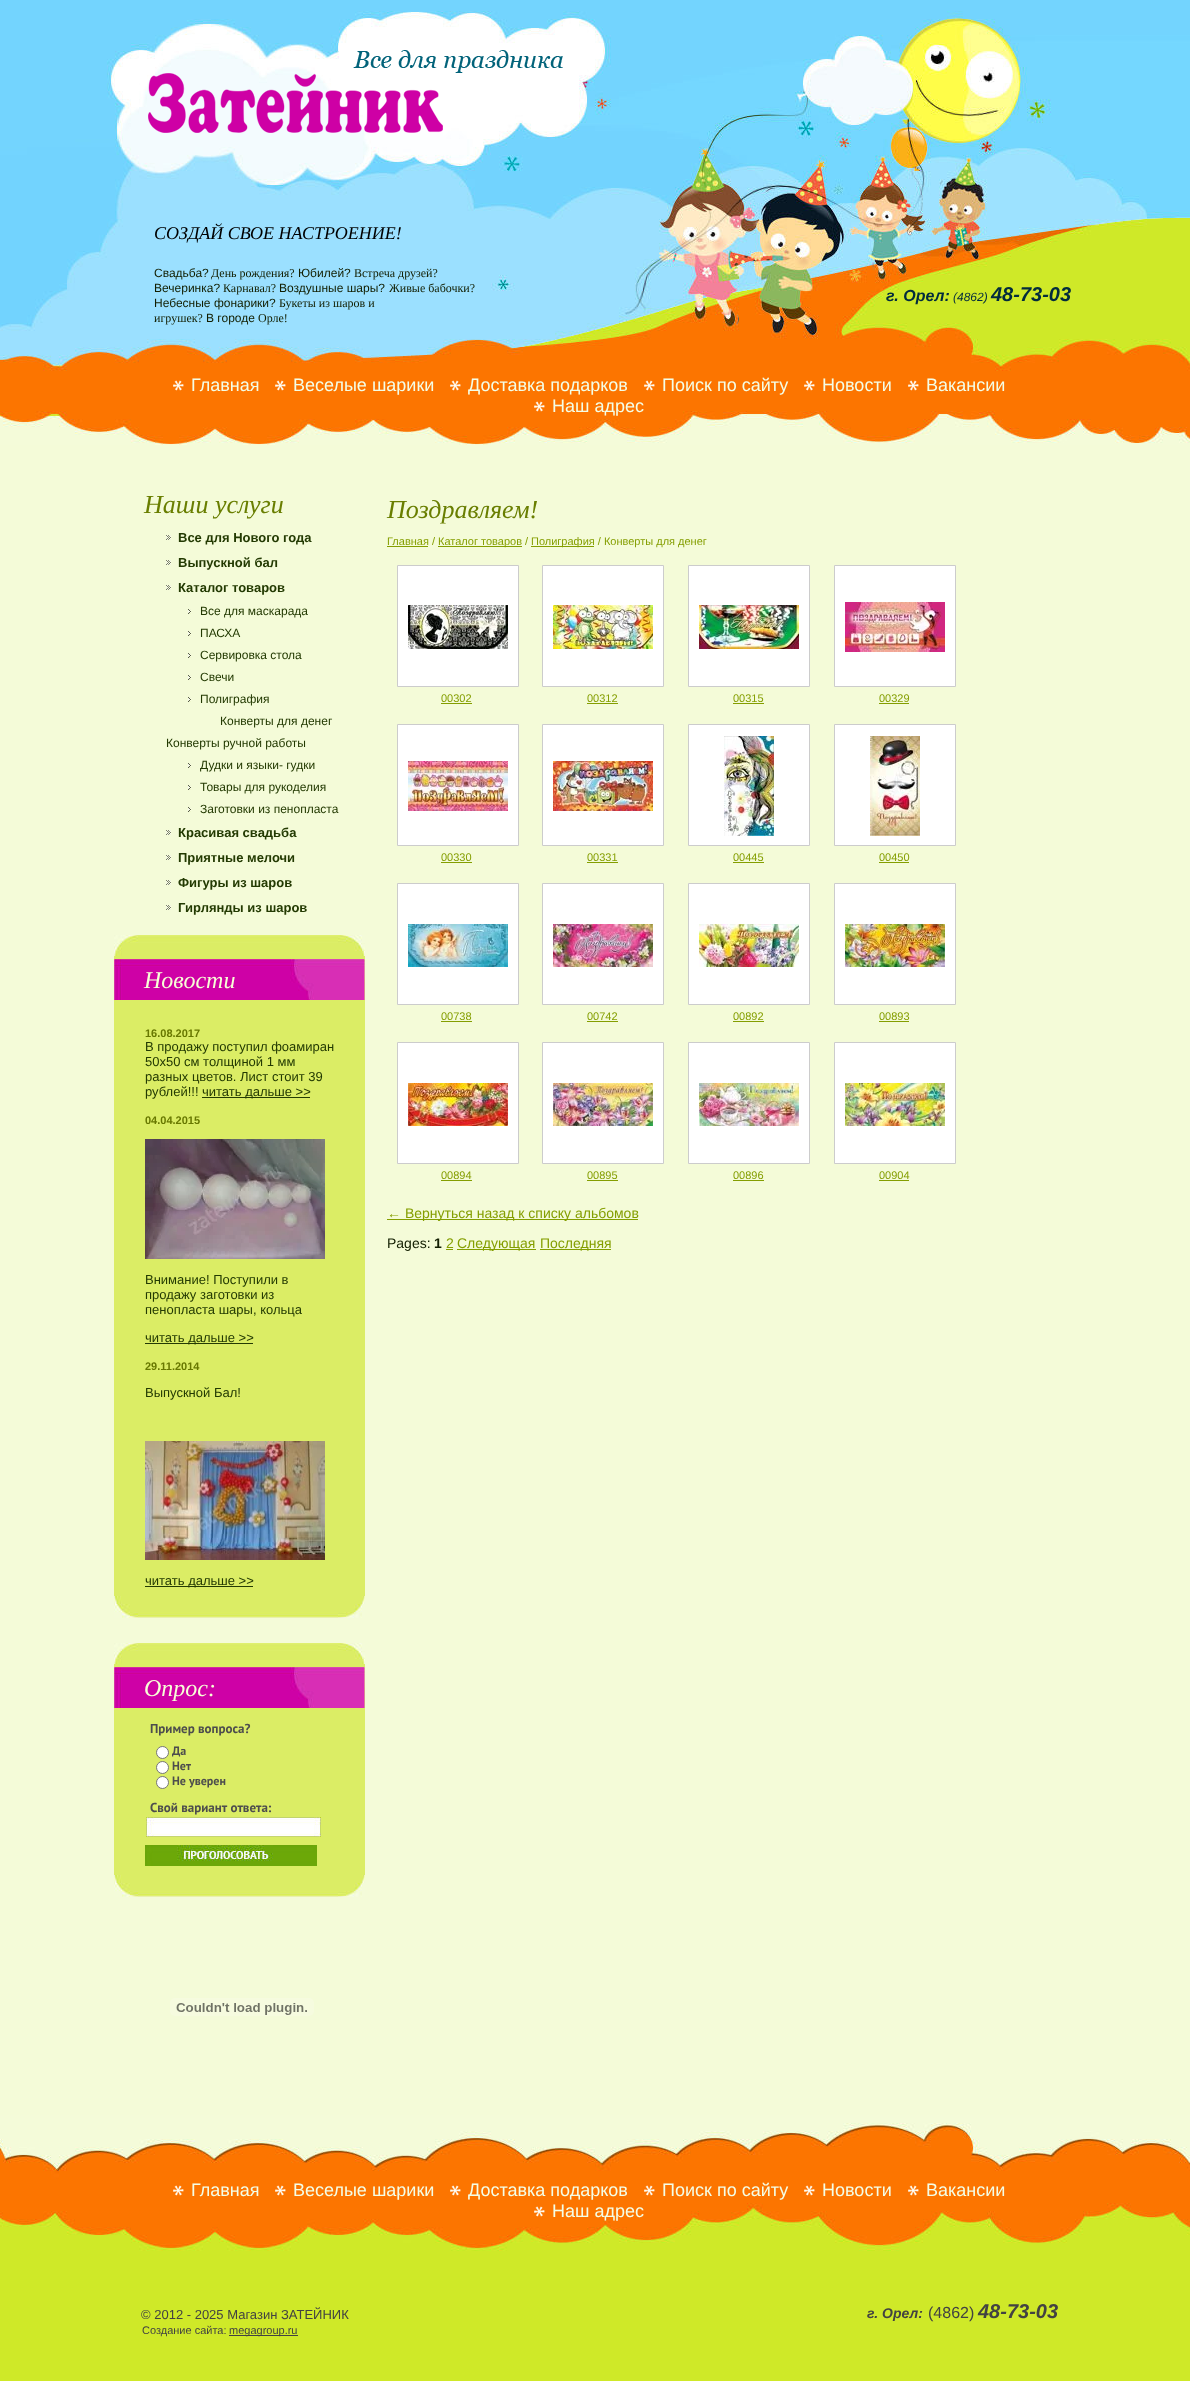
(async () => {
const canvas = document.querySelector("canvas")
canvas.width = 1190
canvas.height = 2381
const c = canvas.getContext("2d")
c.miterLimit = 4
c.fontKerning = "normal"
function T(s,x,y){c.fillText(s,x,y)}
function R(x,y,w,h){c.fillRect(x,y,w,h)}
async function I(src,x,y,w,h){const img=new Image();img.src=src;await img.decode();c.drawImage(img,x,y,w,h)}
c.fillStyle="#f4fbd8"
R(0,0,1190,2381)
await I("1.png",0,0,1190,11)
await I("2.png",0,11,1190,434)
await I("3.png",148,50,415,83)
c.font="italic 18px Liberation Serif"
c.fillStyle="#000"
T("СОЗДАЙ СВОЕ НАСТРОЕНИЕ!",154,239)
c.font="12px Liberation Sans"
c.fillStyle="#121e01"
T("Свадьба?",154,277)
c.font="12px Liberation Serif"
T("День рождения?",211,277)
c.font="12px Liberation Sans"
T("Юбилей?",298,277)
c.font="12px Liberation Serif"
T("Встреча друзей?",354,277)
c.font="12px Liberation Sans"
T("Вечеринка?",154,292)
c.font="12px Liberation Serif"
T("Карнавал?",223,292)
c.font="12px Liberation Sans"
T("Воздушные шары?",279,292)
c.font="12px Liberation Serif"
T("Живые бабочки?",389,292)
c.font="12px Liberation Sans"
T("Небесные фонарики?",154,307)
c.font="12px Liberation Serif"
T("Букеты из шаров и",279,307)
T("игрушек?",154,322)
c.font="12px Liberation Sans"
T("В городе",206,322)
c.font="12px Liberation Serif"
T("Орле!",258,322)
c.font="italic bold 16px Liberation Sans"
c.fillStyle="#022b3d"
T("г. Орел:",886,301)
c.font="italic 12px Liberation Sans"
T("(4862)",953,301)
c.font="italic bold 20px Liberation Sans"
T("48-73-03",991,301)
await I("4.png",173,380,11,11)
c.font="18px Liberation Sans"
c.fillStyle="#f4fee6"
T("Главная",191,391)
await I("4.png",275,380,11,11)
T("Веселые шарики",293,391)
await I("4.png",450,380,11,11)
T("Доставка подарков",468,391)
await I("4.png",644,380,11,11)
T("Поиск по сайту",662,391)
await I("4.png",804,380,11,11)
T("Новости",822,391)
await I("4.png",908,380,11,11)
T("Вакансии",926,391)
await I("4.png",534,401,11,11)
T("Наш адрес",552,412)
c.font="italic 26px Liberation Serif"
c.fillStyle="#697e00"
T("Наши услуги",144,513)
await I("5.png",166,535,5,5)
c.font="bold 13px Liberation Sans"
c.fillStyle="#233a02"
T("Все для Нового года",178,542)
await I("5.png",166,560,5,5)
T("Выпускной бал",178,567)
await I("5.png",166,585,5,5)
T("Каталог товаров",178,592)
await I("6.png",188,609,3,5)
c.font="12px Liberation Sans"
T("Все для маскарада",200,615)
await I("6.png",188,631,3,5)
T("ПАСХА",200,637)
await I("6.png",188,653,3,5)
T("Сервировка стола",200,659)
await I("6.png",188,675,3,5)
T("Свечи",200,681)
await I("6.png",188,697,3,5)
T("Полиграфия",200,703)
T("Конверты для денег",220,725)
T("Конверты ручной работы",166,747)
await I("6.png",188,763,3,5)
T("Дудки и языки- гудки",200,769)
await I("6.png",188,785,3,5)
T("Товары для рукоделия",200,791)
await I("6.png",188,807,3,5)
T("Заготовки из пенопласта",200,813)
await I("5.png",166,830,5,5)
c.font="bold 13px Liberation Sans"
T("Красивая свадьба",178,837)
await I("5.png",166,855,5,5)
T("Приятные мелочи",178,862)
await I("5.png",166,880,5,5)
T("Фигуры из шаров",178,887)
await I("5.png",166,905,5,5)
T("Гирлянды из шаров",178,912)
c.fillStyle="#dbed65"
R(114,956,251,640)
await I("7.png",114,935,251,21)
await I("8.png",114,1596,251,22)
await I("9.png",114,959,251,41)
c.font="italic 24px Liberation Serif"
c.fillStyle="#f7ffd7"
T("Новости",144,988)
c.font="bold 11px Liberation Sans"
c.fillStyle="#687800"
T("16.08.2017",145,1037)
c.font="13px Liberation Sans"
c.fillStyle="#233a02"
T("В продажу поступил фоамиран",145,1051)
T("50х50 см толщиной 1 мм",145,1066)
T("разных цветов. Лист стоит 39",145,1081)
T("рублей!!!",145,1096)
c.fillStyle="#243b03"
R(202,1097,108,1)
c.fillStyle="#233a02"
T("читать дальше >>",202,1096)
c.font="bold 11px Liberation Sans"
c.fillStyle="#687800"
T("04.04.2015",145,1124)
await I("10.png",145,1139,180,120)
c.font="13px Liberation Sans"
c.fillStyle="#233a02"
T("Внимание! Поступили в",145,1284)
T("продажу заготовки из",145,1299)
T("пенопласта шары, кольца",145,1314)
c.fillStyle="#243b03"
R(145,1343,108,1)
c.fillStyle="#233a02"
T("читать дальше >>",145,1342)
c.font="bold 11px Liberation Sans"
c.fillStyle="#687800"
T("29.11.2014",145,1370)
c.font="13px Liberation Sans"
c.fillStyle="#233a02"
T("Выпускной Бал!",145,1397)
await I("11.png",145,1441,180,119)
c.fillStyle="#243b03"
R(145,1586,108,1)
c.fillStyle="#233a02"
T("читать дальше >>",145,1585)
c.fillStyle="#dbed65"
R(114,1664,251,211)
await I("7.png",114,1643,251,21)
await I("8.png",114,1875,251,22)
await I("9.png",114,1667,251,41)
c.font="italic 24px Liberation Serif"
c.fillStyle="#f7ffd7"
T("Опрос:",144,1696)
c.font="bold 13px PT Sans"
c.fillStyle="#4d4d4d"
T("Пример вопроса?",150,1733)
c.fillStyle="#fff"
c.beginPath()
c.arc(162.5,1752.5,6,0,7)
c.fill()
c.strokeStyle="#767676"
c.stroke()
c.font="bold 12px PT Sans"
c.fillStyle="#4d4d4d"
T("Да",172,1755)
c.fillStyle="#fff"
c.beginPath()
c.arc(162.5,1767.5,6,0,7)
c.fill()
c.stroke()
c.fillStyle="#4d4d4d"
T("Нет",172,1770)
c.fillStyle="#fff"
c.beginPath()
c.arc(162.5,1782.5,6,0,7)
c.fill()
c.stroke()
c.fillStyle="#4d4d4d"
T("Не уверен",172,1785)
c.font="bold 13px PT Sans"
T("Свой вариант ответа:",150,1812)
await I("12.png",146,1817,175,20)
await I("13.png",145,1845,172,21)
await I("14.png",170,1998,144,18)
c.font="italic 26px Liberation Serif"
c.fillStyle="#697e00"
T("Поздравляем!",387,518)
c.font="11px Liberation Sans"
c.fillStyle="#849e00"
T("Главная /",387,545)
R(387,546,41,1)
R(438,546,84,1)
T("Каталог товаров /",438,545)
R(531,546,63,1)
T("Полиграфия / Конверты для денег",531,545)
c.fillStyle="#fff"
c.beginPath()
c.rect(397.5,565.5,121,121)
c.fill()
c.strokeStyle="#ccc"
c.stroke()
await I("15.png",408,605,100,44)
c.fillStyle="#849e00"
T("00302",441,702)
R(441,703,31,1)
c.fillStyle="#fff"
c.beginPath()
c.rect(542.5,565.5,121,121)
c.fill()
c.stroke()
await I("16.png",553,605,100,44)
c.fillStyle="#849e00"
T("00312",587,702)
R(587,703,31,1)
c.fillStyle="#fff"
c.beginPath()
c.rect(688.5,565.5,121,121)
c.fill()
c.stroke()
await I("17.png",699,605,100,44)
c.fillStyle="#849e00"
T("00315",733,702)
R(733,703,31,1)
c.fillStyle="#fff"
c.beginPath()
c.rect(834.5,565.5,121,121)
c.fill()
c.stroke()
await I("18.png",845,602,100,50)
c.fillStyle="#849e00"
T("00329",879,702)
R(879,703,30,1)
c.fillStyle="#fff"
c.beginPath()
c.rect(397.5,724.5,121,121)
c.fill()
c.stroke()
await I("19.png",408,761,100,50)
c.fillStyle="#849e00"
T("00330",441,861)
R(441,862,31,1)
c.fillStyle="#fff"
c.beginPath()
c.rect(542.5,724.5,121,121)
c.fill()
c.stroke()
await I("20.png",553,761,100,50)
c.fillStyle="#849e00"
T("00331",587,861)
R(587,862,31,1)
c.fillStyle="#fff"
c.beginPath()
c.rect(688.5,724.5,121,121)
c.fill()
c.stroke()
await I("21.png",724,736,50,100)
c.fillStyle="#849e00"
T("00445",733,861)
R(733,862,31,1)
c.fillStyle="#fff"
c.beginPath()
c.rect(834.5,724.5,121,121)
c.fill()
c.stroke()
await I("22.png",870,736,50,100)
c.fillStyle="#849e00"
T("00450",879,861)
R(879,862,30,1)
c.fillStyle="#fff"
c.beginPath()
c.rect(397.5,883.5,121,121)
c.fill()
c.stroke()
await I("23.png",408,924,100,43)
c.fillStyle="#849e00"
T("00738",441,1020)
R(441,1021,31,1)
c.fillStyle="#fff"
c.beginPath()
c.rect(542.5,883.5,121,121)
c.fill()
c.stroke()
await I("24.png",553,924,100,43)
c.fillStyle="#849e00"
T("00742",587,1020)
R(587,1021,31,1)
c.fillStyle="#fff"
c.beginPath()
c.rect(688.5,883.5,121,121)
c.fill()
c.stroke()
await I("25.png",699,924,100,43)
c.fillStyle="#849e00"
T("00892",733,1020)
R(733,1021,31,1)
c.fillStyle="#fff"
c.beginPath()
c.rect(834.5,883.5,121,121)
c.fill()
c.stroke()
await I("26.png",845,924,100,43)
c.fillStyle="#849e00"
T("00893",879,1020)
R(879,1021,30,1)
c.fillStyle="#fff"
c.beginPath()
c.rect(397.5,1042.5,121,121)
c.fill()
c.stroke()
await I("27.png",408,1083,100,43)
c.fillStyle="#849e00"
T("00894",441,1179)
R(441,1180,31,1)
c.fillStyle="#fff"
c.beginPath()
c.rect(542.5,1042.5,121,121)
c.fill()
c.stroke()
await I("28.png",553,1083,100,43)
c.fillStyle="#849e00"
T("00895",587,1179)
R(587,1180,31,1)
c.fillStyle="#fff"
c.beginPath()
c.rect(688.5,1042.5,121,121)
c.fill()
c.stroke()
await I("29.png",699,1083,100,43)
c.fillStyle="#849e00"
T("00896",733,1179)
R(733,1180,31,1)
c.fillStyle="#fff"
c.beginPath()
c.rect(834.5,1042.5,121,121)
c.fill()
c.stroke()
await I("30.png",845,1083,100,43)
c.fillStyle="#849e00"
T("00904",879,1179)
R(879,1180,30,1)
R(387,1219,251,1)
c.font="14px Liberation Sans"
T("← Вернуться назад к списку альбомов",387,1218)
c.fillStyle="#121e01"
T("Pages:",387,1248)
c.font="bold 14px Liberation Sans"
T("1",434,1248)
c.font="14px Liberation Sans"
c.fillStyle="#849e00"
T("2",446,1248)
R(446,1249,7,1)
R(457,1249,79,1)
T("Следующая",457,1248)
R(540,1249,71,1)
T("Последняя",540,1248)
await I("31.png",0,2251,1190,130)
await I("32.png",0,2115,1190,136)
await I("4.png",173,2185,11,11)
c.font="18px Liberation Sans"
c.fillStyle="#f4fee6"
T("Главная",191,2196)
await I("4.png",275,2185,11,11)
T("Веселые шарики",293,2196)
await I("4.png",450,2185,11,11)
T("Доставка подарков",468,2196)
await I("4.png",644,2185,11,11)
T("Поиск по сайту",662,2196)
await I("4.png",804,2185,11,11)
T("Новости",822,2196)
await I("4.png",908,2185,11,11)
T("Вакансии",926,2196)
await I("4.png",534,2206,11,11)
T("Наш адрес",552,2217)
c.font="13px Liberation Sans"
c.fillStyle="#424242"
T("© 2012 - 2025 Магазин ЗАТЕЙНИК",141,2319)
c.font="italic bold 14px Liberation Sans"
T("г. Орел:",867,2318)
c.font="16px Liberation Sans"
T("(4862)",928,2318)
c.font="italic bold 20px Liberation Sans"
T("48-73-03",978,2318)
c.font="11px Liberation Sans"
T("Создание сайта:",142,2334)
R(229,2335,69,1)
T("megagroup.ru",229,2334)
})()
